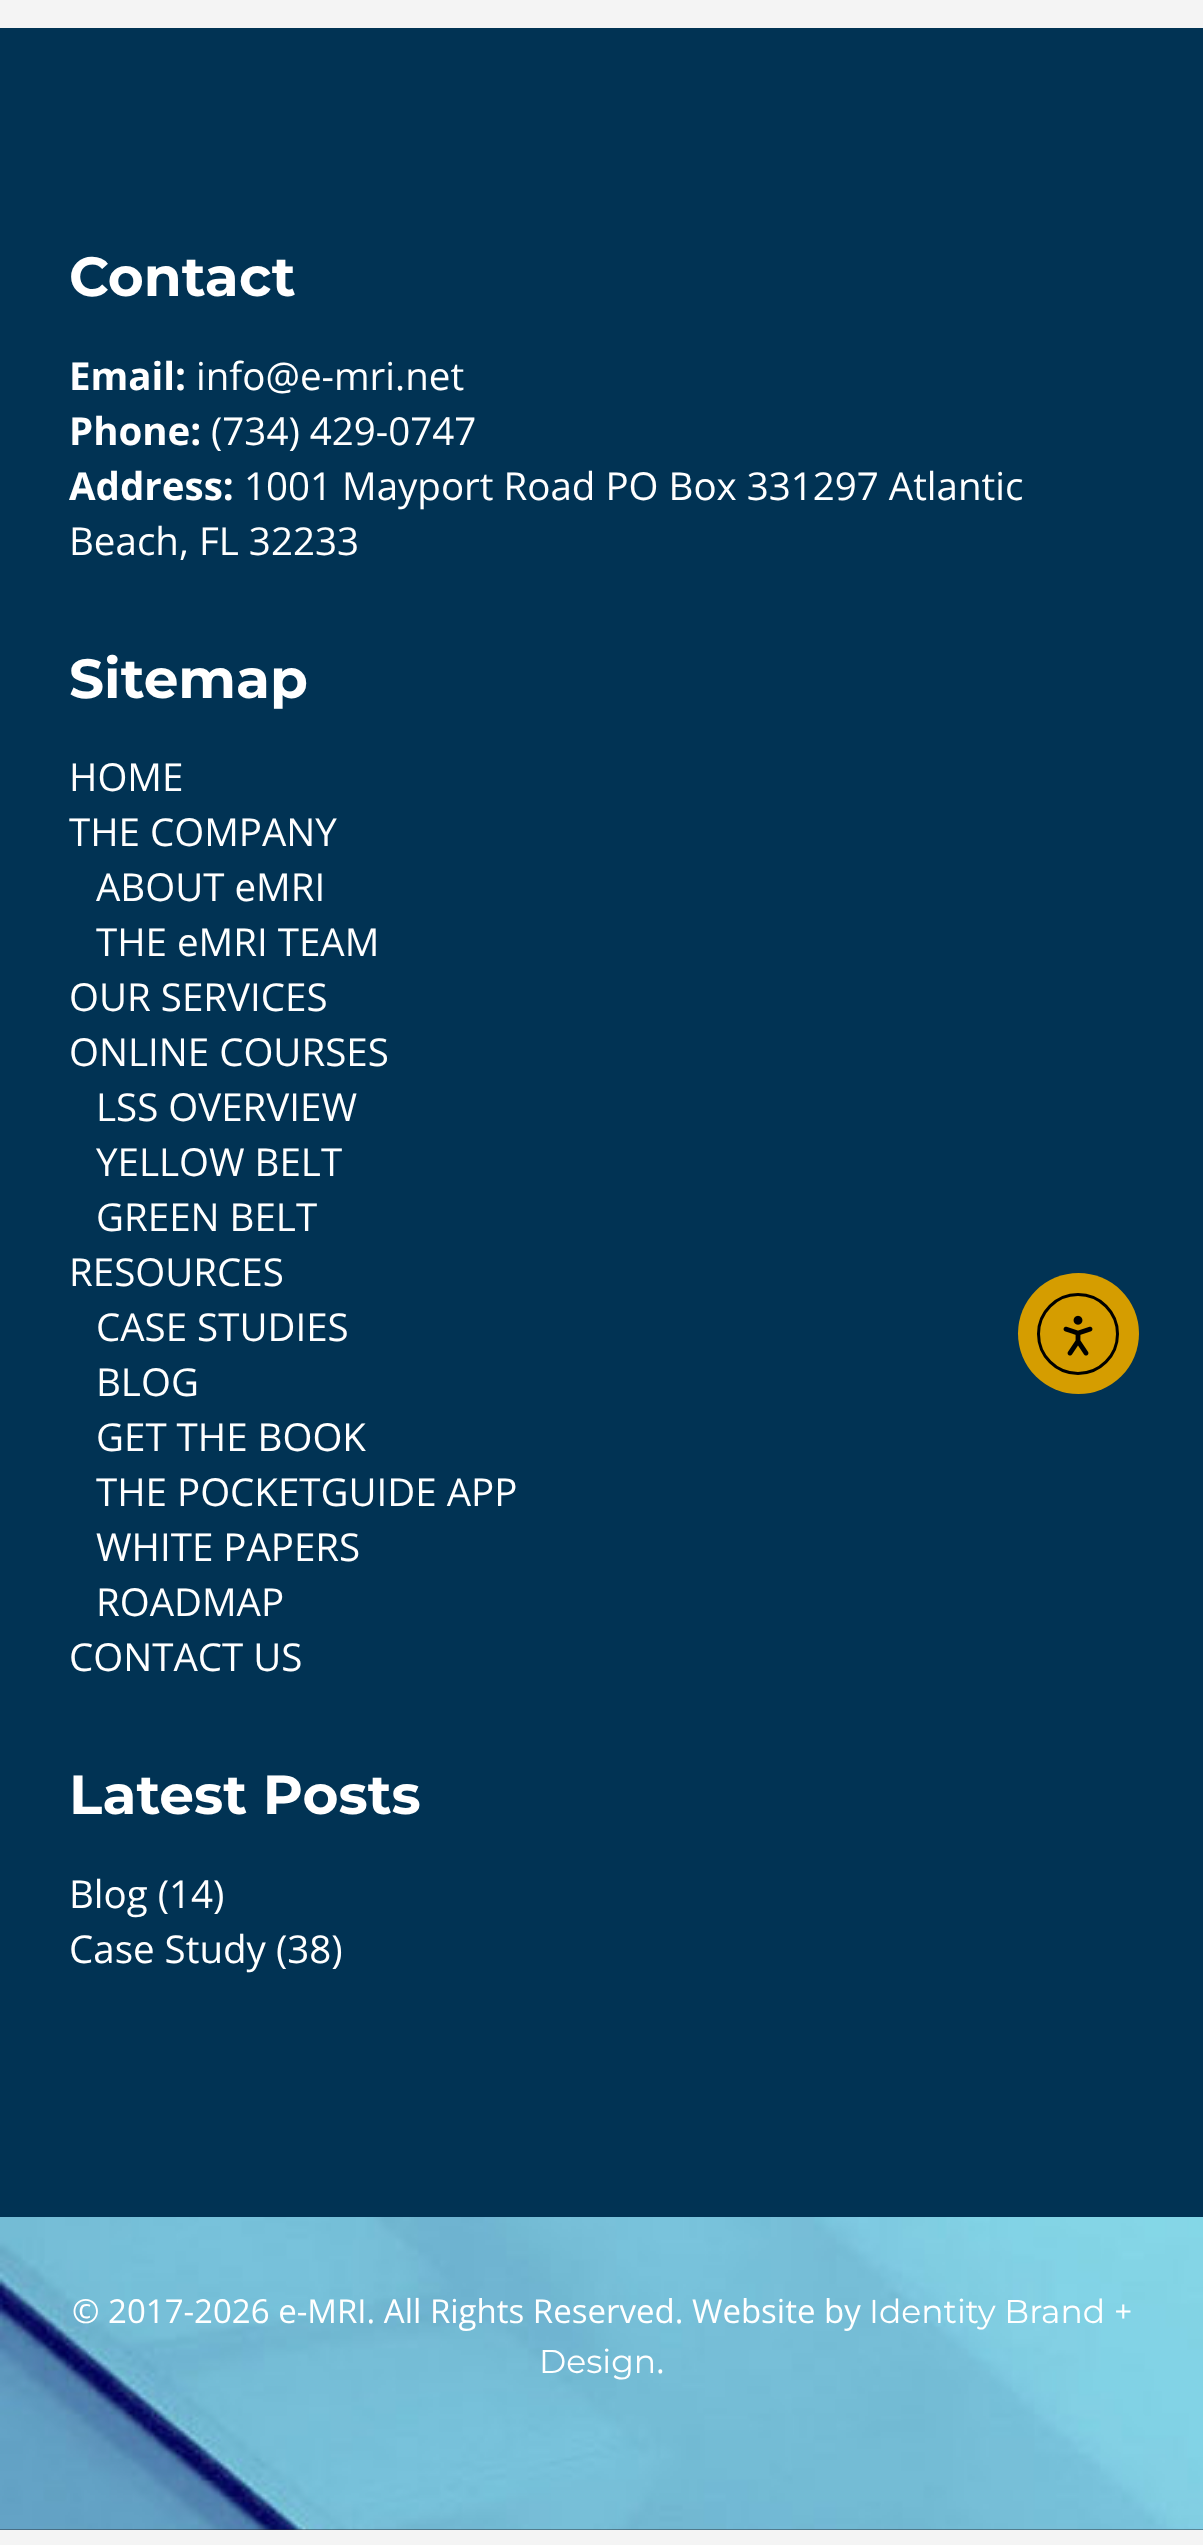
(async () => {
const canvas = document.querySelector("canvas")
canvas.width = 1203
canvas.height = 2545
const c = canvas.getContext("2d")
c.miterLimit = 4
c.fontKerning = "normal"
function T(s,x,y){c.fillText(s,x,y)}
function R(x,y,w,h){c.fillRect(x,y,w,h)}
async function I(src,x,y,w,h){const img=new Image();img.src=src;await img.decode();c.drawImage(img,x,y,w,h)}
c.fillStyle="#f4f4f4"
R(0,0,1203,2545)
c.fillStyle="#013354"
R(0,28,1203,2189)
c.font="bold 55px Montserrat"
c.fillStyle="#fff"
T("Contact",69,296)
c.font="bold 38.5px Open Sans"
T("Email:",69,390)
c.font="38.5px Open Sans"
T("info@e-mri.net",196,390)
c.font="bold 38.5px Open Sans"
T("Phone:",69,445)
c.font="38.5px Open Sans"
T("(734) 429-0747",211,445)
c.font="bold 38.5px Open Sans"
T("Address:",69,500)
c.font="38.5px Open Sans"
T("1001 Mayport Road PO Box 331297 Atlantic",244,500)
T("Beach, FL 32233",69,555)
c.font="bold 55px Montserrat"
T("Sitemap",69,698)
c.font="38.5px Open Sans"
T("HOME",69,791)
T("THE COMPANY",69,846)
T("ABOUT eMRI",96,901)
T("THE eMRI TEAM",96,956)
T("OUR SERVICES",69,1011)
T("ONLINE COURSES",69,1066)
T("LSS OVERVIEW",96,1121)
T("YELLOW BELT",96,1176)
T("GREEN BELT",96,1231)
T("RESOURCES",69,1286)
T("CASE STUDIES",96,1341)
T("BLOG",96,1396)
T("GET THE BOOK",96,1451)
T("THE POCKETGUIDE APP",96,1506)
T("WHITE PAPERS",96,1561)
T("ROADMAP",96,1616)
T("CONTACT US",69,1671)
c.font="bold 55px Montserrat"
T("Latest Posts",69,1814)
c.font="38.5px Open Sans"
T("Blog (14)",69,1908)
T("Case Study (38)",69,1963)
c.fillStyle="#272b30"
R(0,2529,1203,1)
await I("1.png",0,2217,1203,313)
c.font="33px Open Sans"
c.fillStyle="#fff"
T("© 2017-2026 e-MRI. All Rights Reserved. Website by",72,2323)
c.font="33px Montserrat"
T("Identity Brand +",869,2323)
T("Design",539,2373)
c.font="33px Open Sans"
T(".",656,2373)
c.fillStyle="#d59d00"
c.beginPath()
c.arc(1078.5,1333.5,60.5,0,7)
c.fill()
c.beginPath()
c.arc(1078,1334,39.5,0,7)
c.strokeStyle="#000"
c.lineWidth=3
c.stroke()
await I("2.png",1063,1315,30,41)
})()
